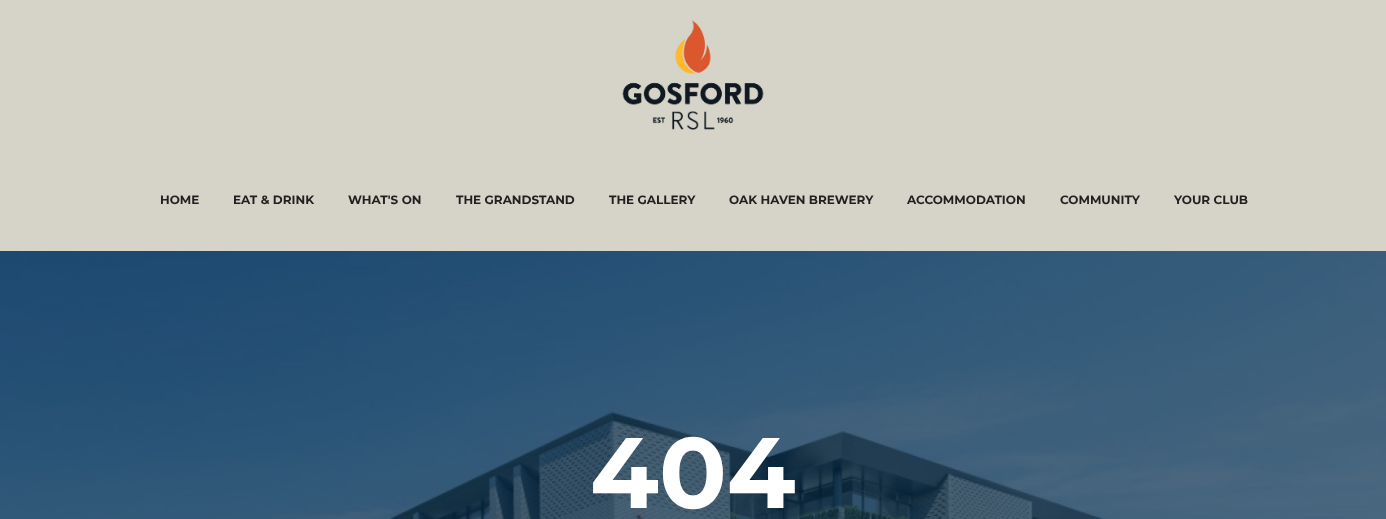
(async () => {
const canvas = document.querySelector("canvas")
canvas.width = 1386
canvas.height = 519
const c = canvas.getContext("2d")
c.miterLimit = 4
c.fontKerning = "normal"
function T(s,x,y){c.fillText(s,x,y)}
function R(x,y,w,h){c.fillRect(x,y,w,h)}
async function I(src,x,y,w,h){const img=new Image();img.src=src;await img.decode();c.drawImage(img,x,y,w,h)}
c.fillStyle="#d6d3c8"
R(0,0,1386,519)
await I("1.png",622,20,142,110)
c.font="bold 12px Montserrat"
c.fillStyle="#231f20"
T("HOME",160,204)
T("EAT & DRINK",233,204)
T("WHAT'S ON",348,204)
T("THE GRANDSTAND",456,204)
T("THE GALLERY",609,204)
T("OAK HAVEN BREWERY",729,204)
T("ACCOMMODATION",907,204)
T("COMMUNITY",1060,204)
T("YOUR CLUB",1174,204)
c.fillStyle="#012a4a"
R(0,251,1386,268)
await I("2.png",0,251,1386,268)
c.font="bold 100px Montserrat"
c.fillStyle="#fff"
T("404",590,508)
})()
